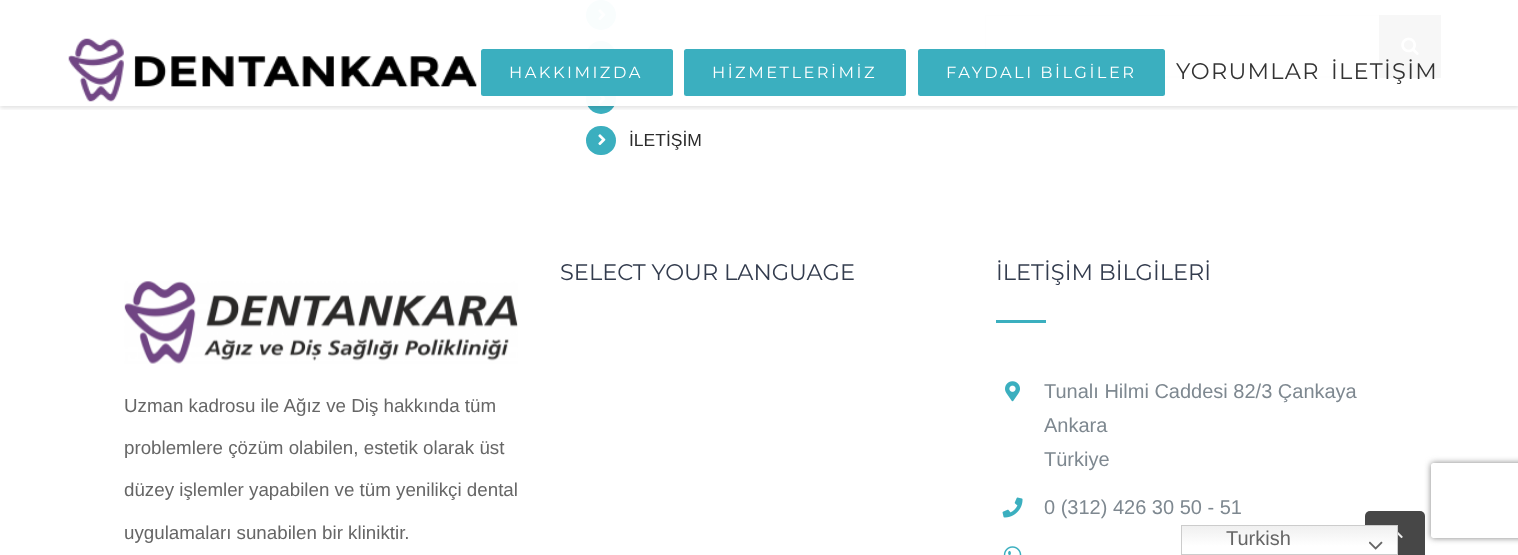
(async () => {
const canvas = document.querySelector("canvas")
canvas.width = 1518
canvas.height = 555
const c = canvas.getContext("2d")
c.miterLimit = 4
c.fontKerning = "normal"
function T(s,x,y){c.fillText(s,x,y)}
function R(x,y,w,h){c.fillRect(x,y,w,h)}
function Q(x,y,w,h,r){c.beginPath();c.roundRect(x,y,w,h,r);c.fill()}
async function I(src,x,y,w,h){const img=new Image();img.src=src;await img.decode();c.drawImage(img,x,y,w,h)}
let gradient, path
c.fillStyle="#fff"
R(0,0,1518,555)
c.fillStyle="#c8d7d9"
path = new Path2D("M985 15h394v1h-393z")
c.fill(path)
path = new Path2D("M1379 78h-394l1-2h393z")
c.fill(path)
c.fillStyle="#b7cbcec4"
path = new Path2D("M985 78v-63l1 1v60z")
c.fill(path)
c.fillStyle="#000"
R(1379,15,62,63)
await I("2.png",1401,37,18,18)
c.fillStyle="#3bafbf"
c.beginPath()
c.arc(601,15,15,0,7)
c.fill()
await I("3.png",598,9,8,12)
c.beginPath()
c.arc(601,56,15,0,7)
c.fill()
c.beginPath()
c.arc(601,99,15,0,7)
c.fill()
await I("4.png",598,96,8,8)
c.save()
c.beginPath()
c.rect(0,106,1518,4)
c.clip()
c.fillStyle="#0000001f"
c.filter="blur(2px)"
c.beginPath()
c.rect(0,1,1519,107)
c.fill()
c.filter="none"
c.restore()
c.fillStyle="#fffffff7"
R(586,0,855,106)
await I("1.png",68,38,409,64)
c.fillStyle="#3bafbf"
Q(481,49,192,47,2.5)
c.letterSpacing="2.5px"
c.font="100 16.25px Montserrat"
c.fillStyle="#fff"
T("HAKKIMIZDA",509,78)
c.fillStyle="#3bafbf"
Q(684,49,222,47,2.5)
c.fillStyle="#fff"
T("HİZMETLERİMİZ",712,78)
c.fillStyle="#3bafbf"
Q(918,49,247,47,2.5)
c.fillStyle="#fff"
T("FAYDALI BİLGİLER",946,78)
c.letterSpacing="1.25px"
c.font="100 22.5px Montserrat"
c.fillStyle="#333"
T("YORUMLAR",1176,79)
T("İLETİŞİM",1331,79)
c.fillStyle="#3bafbf"
Q(586,126,30,29,14.5)
await I("3.png",598,134,8,12)
c.letterSpacing="0px"
c.font="17.5px Liberation Sans"
c.fillStyle="#2b2b2b"
T("İLETİŞİM",629,146)
c.font="100 22.5px Montserrat"
c.fillStyle="#333c4e"
T("SELECT YOUR LANGUAGE",560,280)
T("İLETİŞİM BİLGİLERİ",996,280)
c.fillStyle="#3bafbf"
R(996,320,50,3)
await I("5.png",1005,381,15,21)
c.font="20px Liberation Sans"
c.fillStyle="#7e8890"
T("Tunalı Hilmi Caddesi 82/3 Çankaya",1044,398)
T("Ankara",1044,432)
T("Türkiye",1044,466)
await I("6.png",1002,497,21,21)
T("0 (312) 426 30 50 - 51",1044,514)
await I("7.png",1003,546,19,9)
await I("8.png",124,281,394,83)
c.font="18.75px Liberation Sans"
c.fillStyle="#666"
T("Uzman kadrosu ile Ağız ve Diş hakkında tüm",124,412)
T("problemlere çözüm olabilen, estetik olarak üst",124,454)
T("düzey işlemler yapabilen ve tüm yenilikçi dental",124,496)
T("uygulamaları sunabilen bir kliniktir.",124,539)
c.save()
path = new Path2D("M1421 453h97v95h-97zm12.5 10h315c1.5 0 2.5 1 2.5 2.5v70c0 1.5-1 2.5-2.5 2.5h-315c-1.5 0-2.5-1-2.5-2.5v-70c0-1.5 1-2.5 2.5-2.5z")
c.clip(path,"evenodd")
c.fillStyle="#808080"
c.filter="blur(3px)"
c.beginPath()
c.roundRect(1431,463,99,75,2.5)
c.fill()
c.filter="none"
c.restore()
c.fillStyle="#474747"
c.beginPath()
c.roundRect(1365,511,60,44,[5,5,0,0])
c.fill()
gradient = c.createLinearGradient(1289,525,1289,555)
gradient.addColorStop(0,"#efefef")
gradient.addColorStop(.7,"#fff")
c.fillStyle = gradient
R(1182,526,215,28)
c.strokeStyle="#ccc"
c.strokeRect(1181.5,525.5,216,29)
c.font="20px Liberation Sans"
c.fillStyle="#666"
T("Turkish",1226,545)
await I("9.png",1369,541,14,9)
await I("10.png",1398,532,5,7)
})()
